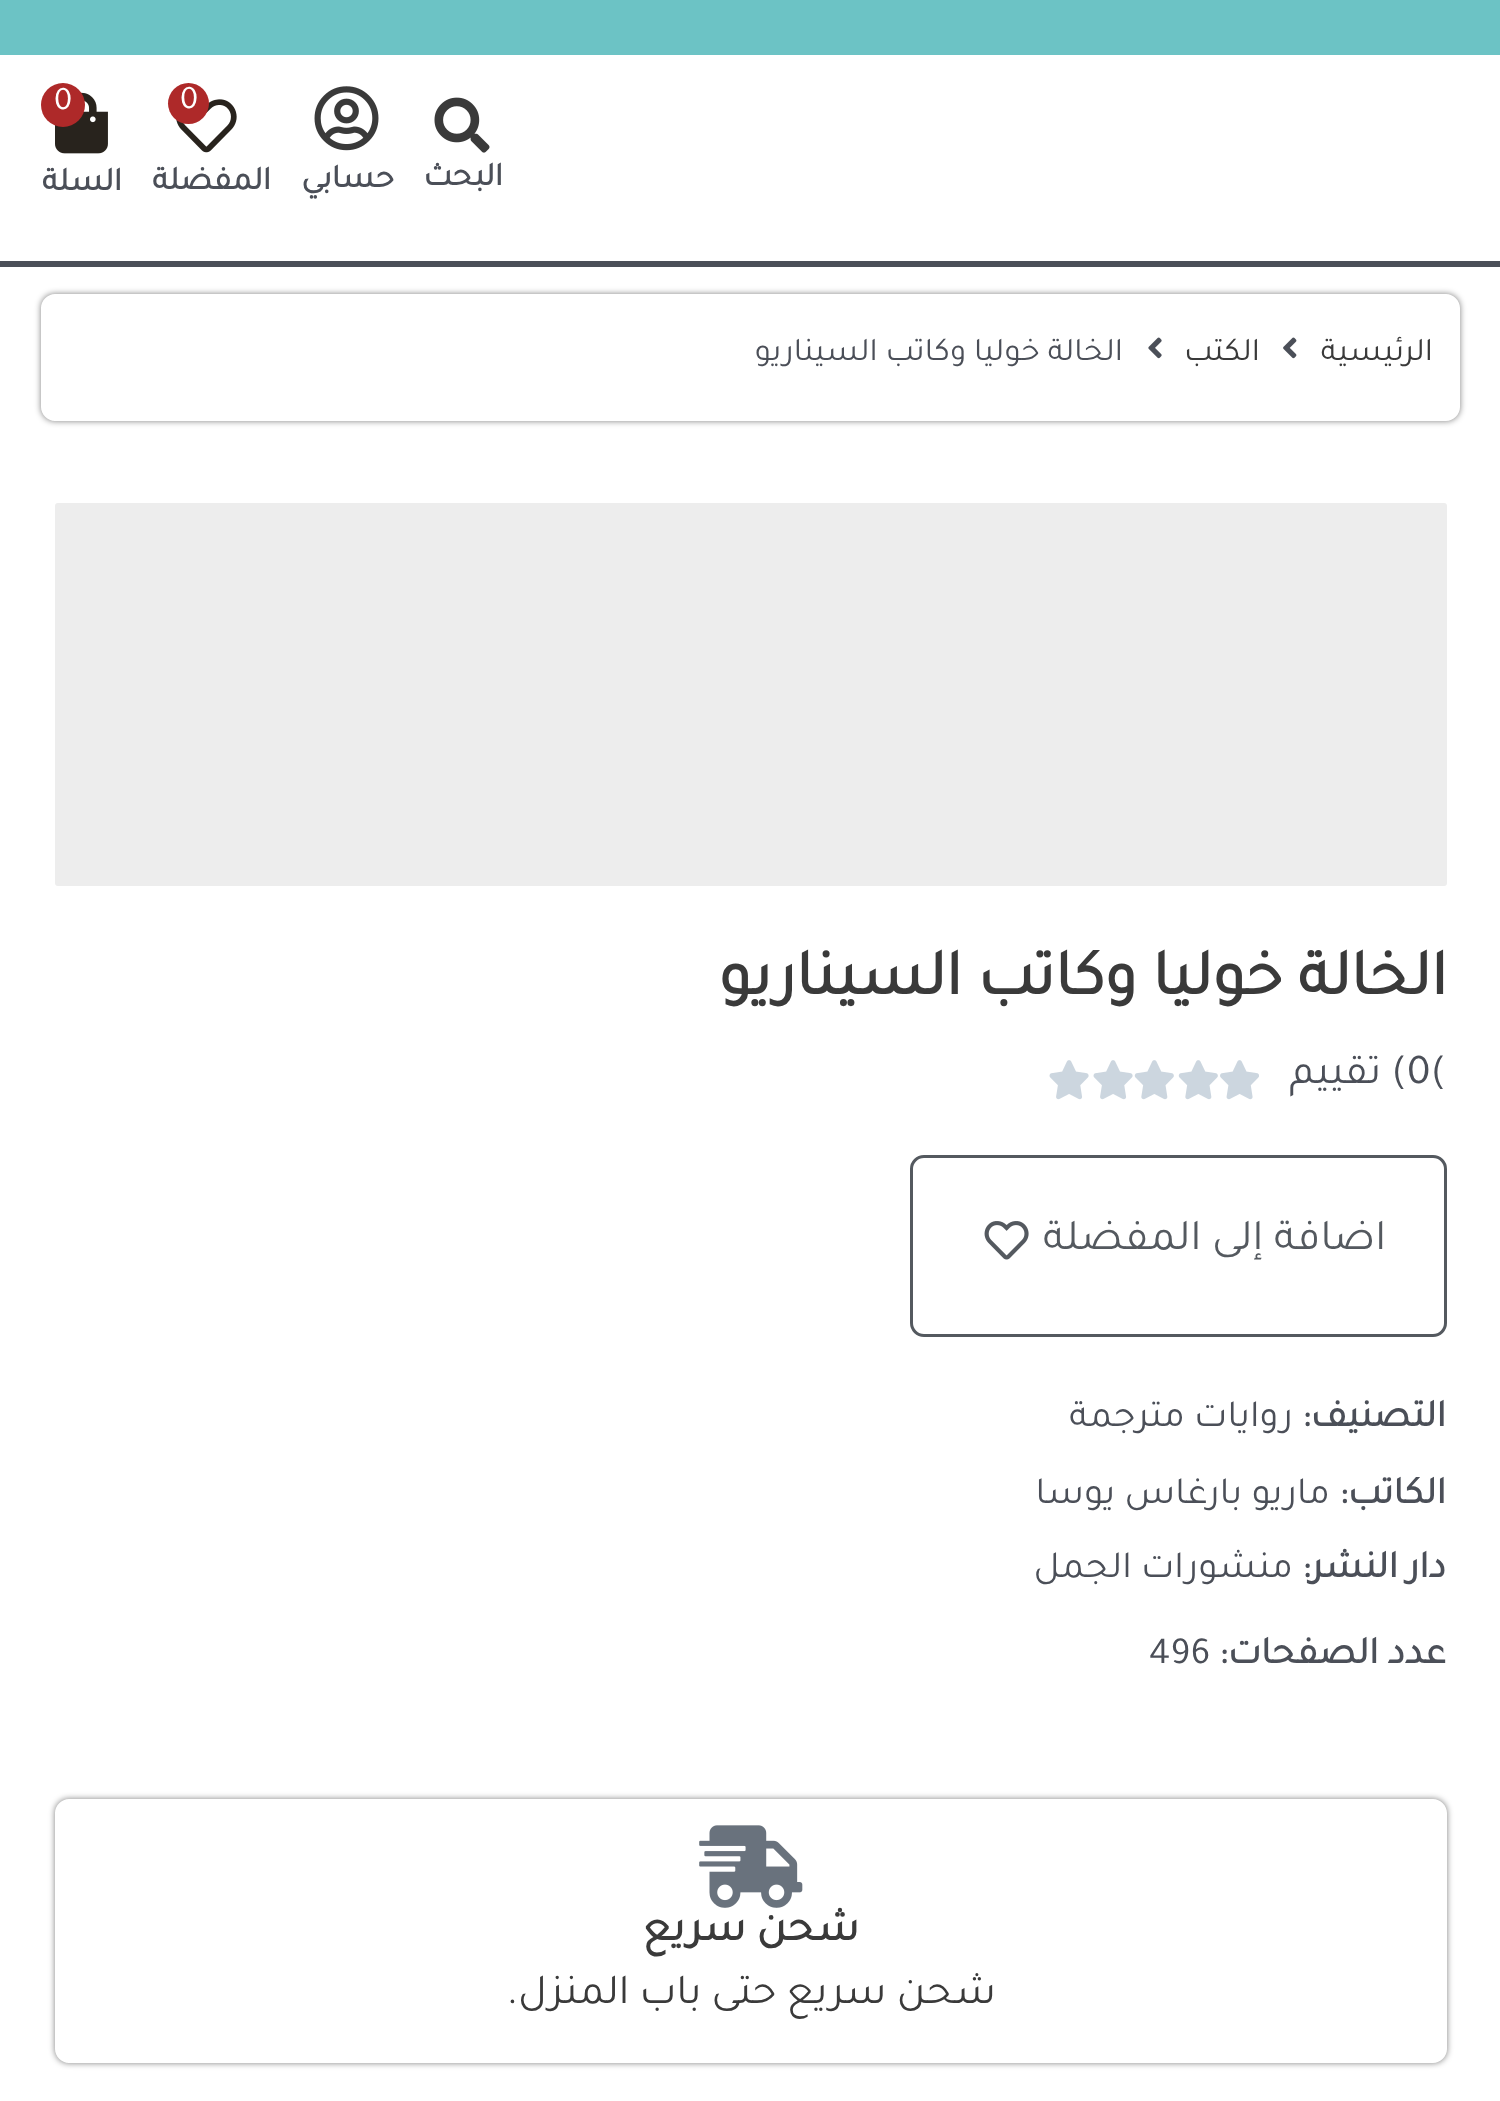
(async () => {
const canvas = document.querySelector("canvas")
canvas.width = 1500
canvas.height = 2101
const c = canvas.getContext("2d")
c.miterLimit = 4
c.fontKerning = "normal"
function T(s,x,y){c.fillText(s,x,y)}
function R(x,y,w,h){c.fillRect(x,y,w,h)}
function Q(x,y,w,h,r){c.beginPath();c.roundRect(x,y,w,h,r);c.fill()}
async function I(src,x,y,w,h){const img=new Image();img.src=src;await img.decode();c.drawImage(img,x,y,w,h)}
let path
c.fillStyle="#fff"
R(0,0,1500,2101)
c.fillStyle="#6cc3c5"
R(0,0,1500,55)
c.fillStyle="#4b4f58"
R(0,261,1500,6)
await I("1.png",434,97,56,56)
c.direction="rtl"
c.font="bold 33px Tajawal"
T("البحث",503,185)
await I("2.png",314,86,65,65)
T("حسابي",394,187)
await I("3.png",176,99,61,54)
c.fillStyle="#ae2929"
c.beginPath()
c.arc(188.5,103.5,20.5,0,7)
c.fill()
c.direction="ltr"
c.font="33px Tajawal"
c.fillStyle="#fff"
T("0",180,108)
c.direction="rtl"
c.font="bold 33px Tajawal"
c.fillStyle="#4b4f58"
T("المفضلة",271,189)
await I("4.png",55,92,53,62)
c.fillStyle="#ae2929"
c.beginPath()
c.arc(63,105,22,0,7)
c.fill()
c.direction="ltr"
c.font="33px Tajawal"
c.fillStyle="#fff"
T("0",54,109)
c.direction="rtl"
c.font="bold 33px Tajawal"
c.fillStyle="#4b4f58"
T("السلة",122,190)
c.save()
path = new Path2D("M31 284h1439v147h-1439zm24 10h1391c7.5 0 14 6.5 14 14v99c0 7.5-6.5 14-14 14h-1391c-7.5 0-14-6.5-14-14v-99c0-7.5 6.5-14 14-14z")
c.clip(path,"evenodd")
c.fillStyle="#00000080"
c.filter="blur(3px)"
c.beginPath()
c.roundRect(41,294,1419,127,14)
c.fill()
c.filter="none"
c.restore()
c.font="33px Tajawal"
c.fillStyle="#3a3a3a"
T("الرئيسية",1433,360)
await I("5.png",1283,337,14,22)
T("الكتب",1260,360)
await I("6.png",1148,337,14,22)
c.fillStyle="#4b4f58"
T("الخالة خوليا وكاتب السيناريو",1123,360)
c.fillStyle="#ededed"
Q(55,503,1392,383,3)
c.font="bold 65.25px Tajawal"
c.fillStyle="#3a3a3a"
T("الخالة خوليا وكاتب السيناريو",1447,994)
c.direction="ltr"
c.font="42.6px Tajawal"
c.fillStyle="#4b4f58"
T("0(",1407,1083)
c.direction="rtl"
T(") تقييم",1407,1083)
await I("7.png",1220,1060,39,40)
await I("8.png",1178,1060,40,40)
await I("8.png",1134,1060,40,40)
await I("9.png",1093,1060,40,40)
await I("9.png",1049,1060,40,40)
c.beginPath()
c.roundRect(911.5,1156.5,534,179,12.5)
c.strokeStyle="#54595f"
c.lineWidth=3
c.stroke()
c.font="44px Tajawal"
c.fillStyle="#54595f"
T("اضافة إلى المفضلة",1386,1249)
await I("10.png",984,1221,45,39)
c.font="bold 38.5px Tajawal"
c.fillStyle="#4b4f58"
T("التصنيف:",1446,1426)
c.font="38.5px Tajawal"
T("روايات مترجمة",1293,1426)
c.font="bold 38.5px Tajawal"
T("الكاتب:",1446,1503)
c.font="38.5px Tajawal"
T("ماريو بارغاس يوسا",1330,1503)
c.font="bold 38.5px Tajawal"
T("دار النشر:",1446,1577)
c.font="38.5px Tajawal"
T("منشورات الجمل",1293,1577)
c.font="bold 38.5px Tajawal"
T("عدد الصفحات:",1446,1663)
c.direction="ltr"
c.font="38.5px Tajawal"
T("496",1149,1663)
c.save()
path = new Path2D("M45 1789h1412v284h-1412zm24 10h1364c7.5 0 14 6.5 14 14v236c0 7.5-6.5 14-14 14h-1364c-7.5 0-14-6.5-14-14v-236c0-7.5 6.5-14 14-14z")
c.clip(path,"evenodd")
c.fillStyle="#00000080"
c.filter="blur(3px)"
c.beginPath()
c.roundRect(55,1799,1392,264,14)
c.fill()
c.filter="none"
c.restore()
await I("11.png",699,1825,104,83)
c.direction="rtl"
c.font="bold 44px Tajawal"
c.fillStyle="#3a3a3a"
T("شحن سريع",859,1940)
c.font="42.6px Tajawal"
T("شحن سريع حتى باب المنزل.",996,2003)
})()
